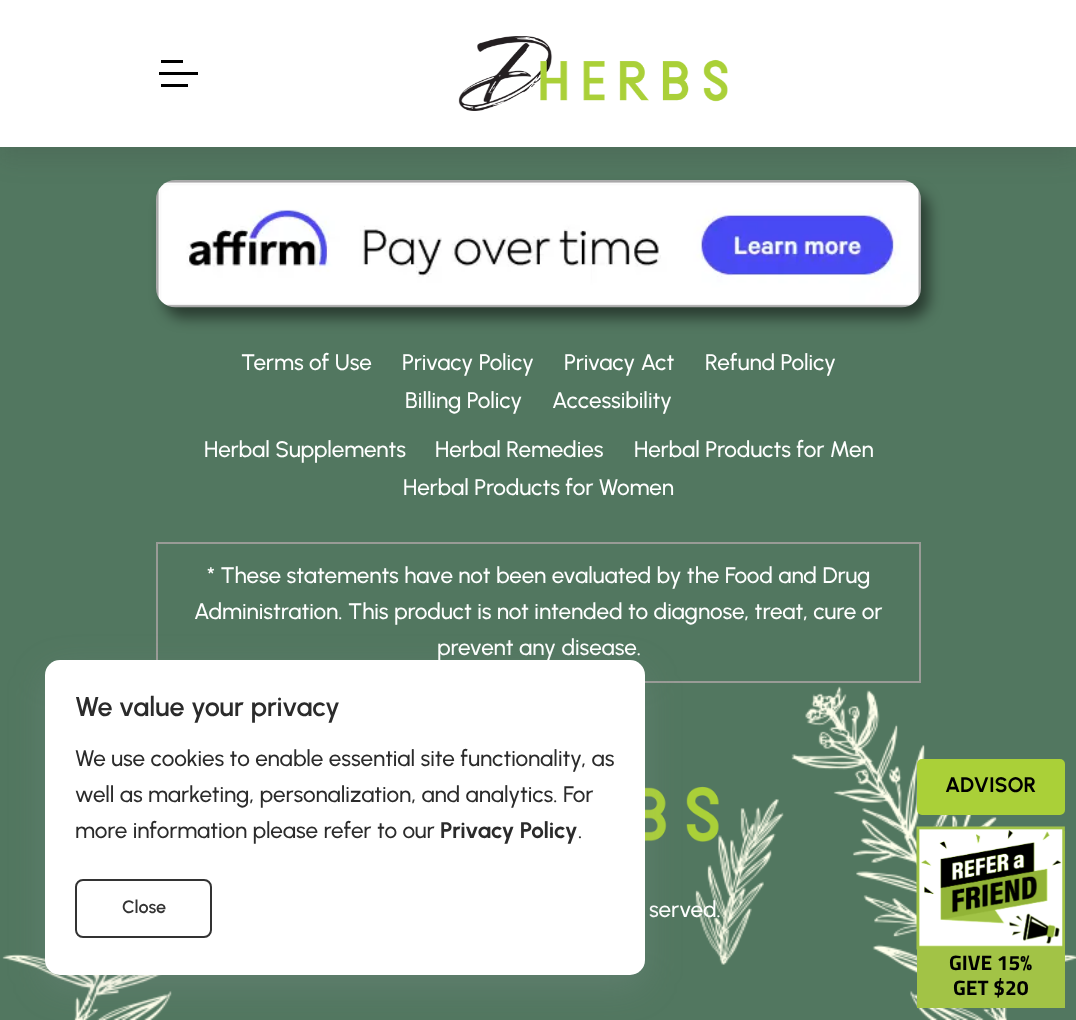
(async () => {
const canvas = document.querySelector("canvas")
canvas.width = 1076
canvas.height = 1020
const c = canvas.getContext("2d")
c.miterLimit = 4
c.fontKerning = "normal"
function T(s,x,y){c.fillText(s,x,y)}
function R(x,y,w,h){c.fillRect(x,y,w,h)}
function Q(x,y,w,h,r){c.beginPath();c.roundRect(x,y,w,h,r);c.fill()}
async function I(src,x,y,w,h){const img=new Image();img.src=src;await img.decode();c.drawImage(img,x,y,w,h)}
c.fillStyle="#527760"
R(0,0,1076,1020)
c.fillStyle="#0000007d"
c.filter="blur(7px)"
c.beginPath()
c.roundRect(164,191,765,127,20)
c.fill()
c.filter="none"
await I("3.png",156,180,765,128)
c.fillStyle="#33333326"
c.filter="blur(12px)"
c.beginPath()
c.rect(0,12,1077,147)
c.fill()
c.filter="none"
c.fillStyle="#fff"
R(0,0,1076,147)
c.fillStyle="#000"
R(159,72,39,3)
R(161,60,22,3)
R(161,84,27,3)
await I("1.png",458,36,270,75)
await I("2.png",2,686,1074,334)
c.font="500 22.5px Urbanist"
c.fillStyle="#fff"
T("Terms of Use",241,370)
T("Privacy Policy",402,370)
T("Privacy Act",564,370)
T("Refund Policy",705,370)
T("Billing Policy",405,408)
T("Accessibility",552,408)
T("Herbal Supplements",204,457)
T("Herbal Remedies",435,457)
T("Herbal Products for Men",634,457)
T("Herbal Products for Women",403,495)
c.strokeStyle="#999b96"
c.lineWidth=2
c.strokeRect(157,543,763,139)
T("* These statements have not been evaluated by the Food and Drug",207,583)
T("Administration. This product is not intended to diagnose, treat, cure or",194,619)
T("prevent any disease.",437,655)
await I("4.png",645,786,74,56)
T("served.",649,917)
c.fillStyle="#959da533"
c.filter="blur(18px)"
c.beginPath()
c.roundRect(45,672,600,315,15)
c.fill()
c.filter="none"
c.fillStyle="#fff"
Q(45,660,600,315,15)
c.font="600 27px Urbanist"
c.fillStyle="#2b2b2b"
T("We value your privacy",75,716)
c.font="500 22.5px Urbanist"
T("We use cookies to enable essential site functionality, as",75,766)
T("well as marketing, personalization, and analytics. For",75,802)
T("more information please refer to our",75,838)
c.font="bold 22.5px Urbanist"
T("Privacy Policy",440,838)
c.font="500 22.5px Urbanist"
T(".",578,838)
c.beginPath()
c.roundRect(76,880,135,57,7)
c.strokeStyle="#333"
c.stroke()
c.font="600 18px Urbanist"
c.fillStyle="#333"
T("Close",122,913)
c.fillStyle="#aad038"
c.beginPath()
c.roundRect(918.5,760.5,145,53,3.5)
c.fill()
c.strokeStyle="#aad038"
c.lineWidth=3
c.stroke()
c.font="bold 21px Urbanist"
c.fillStyle="#000"
T("ADVISOR",945,792)
c.fillStyle="#a2c346"
R(917,831,148,177)
await I("5.png",916,826,149,124)
c.font="bold 21px Titillium Web"
c.fillStyle="#000"
T("GIVE 15%",949,970)
T("GET $20",953,995)
})()
